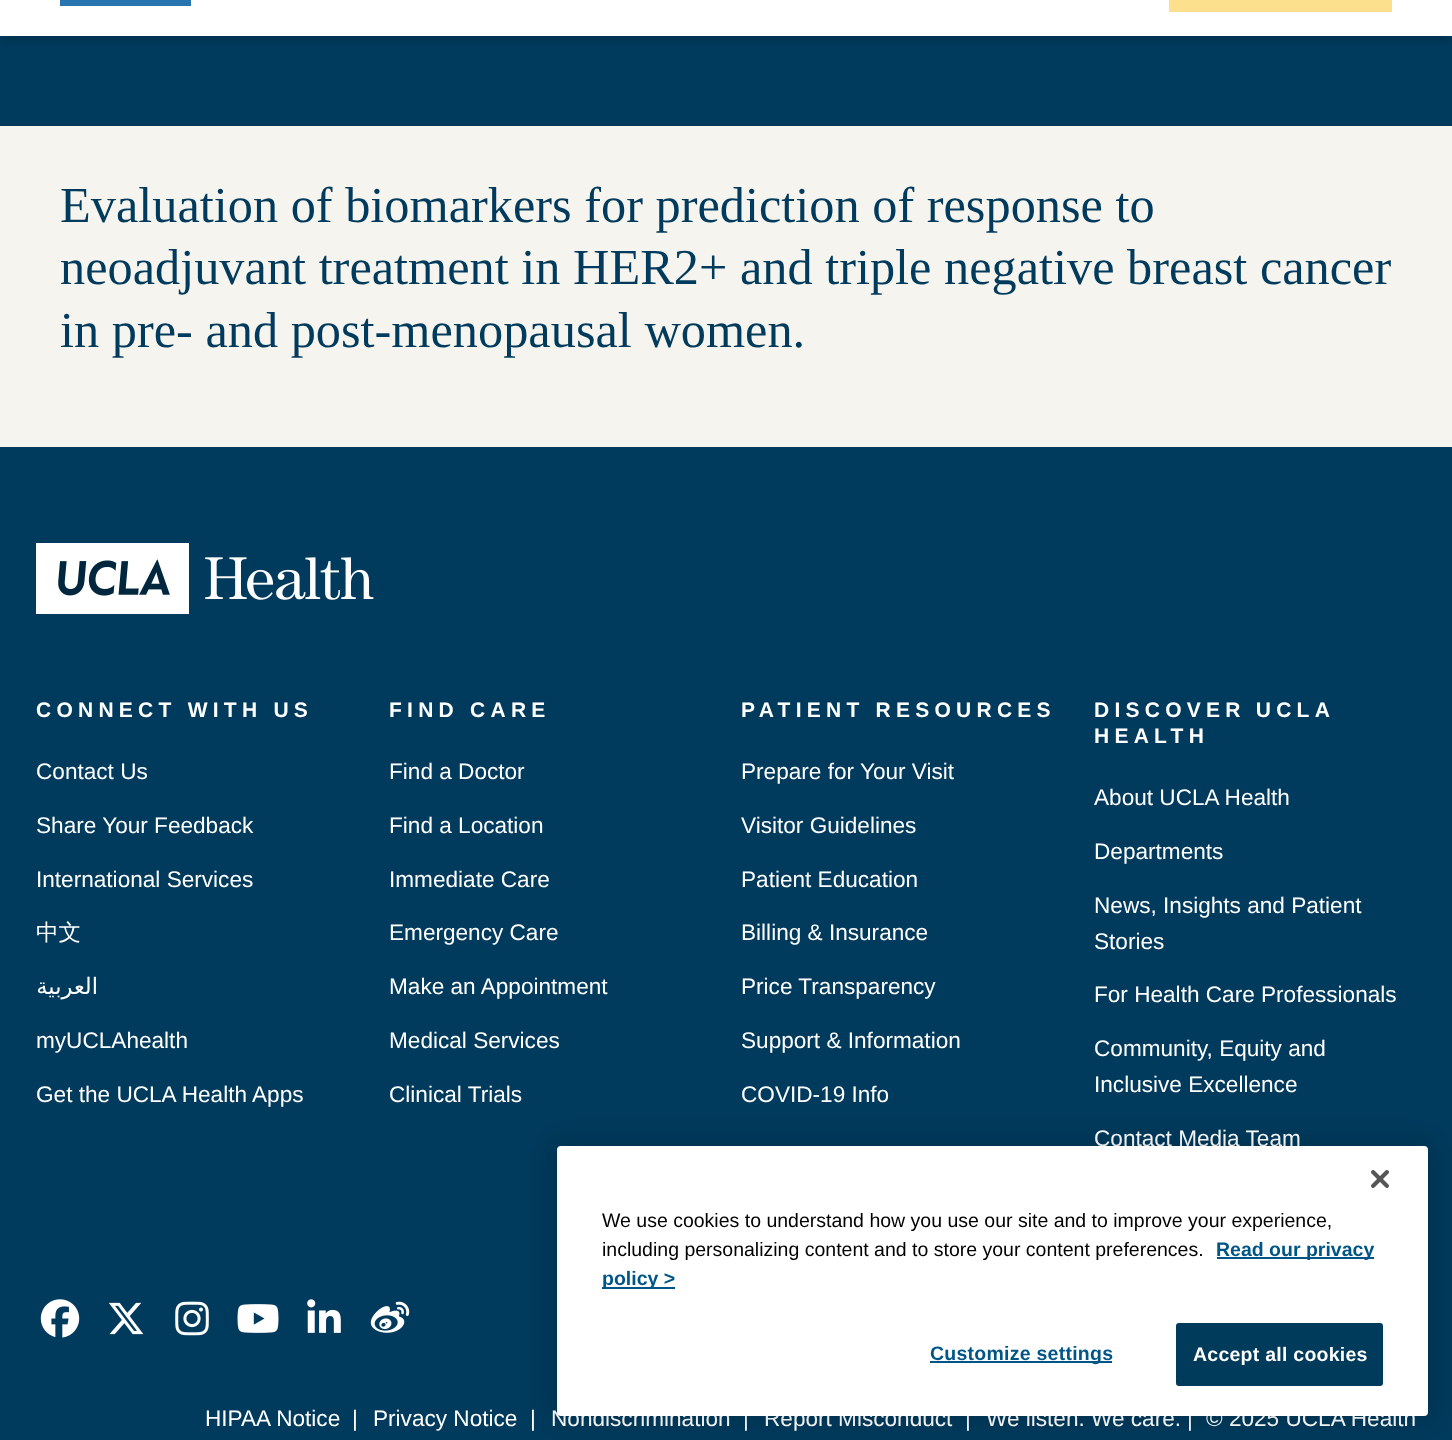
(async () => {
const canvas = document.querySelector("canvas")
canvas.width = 1452
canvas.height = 1440
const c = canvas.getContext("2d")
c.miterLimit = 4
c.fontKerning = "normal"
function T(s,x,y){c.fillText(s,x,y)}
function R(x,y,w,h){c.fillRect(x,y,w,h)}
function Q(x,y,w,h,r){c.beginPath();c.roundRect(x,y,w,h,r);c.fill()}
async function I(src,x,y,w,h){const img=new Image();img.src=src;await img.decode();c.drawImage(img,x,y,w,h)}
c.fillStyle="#f6f4ee"
R(0,0,1452,1440)
c.fillStyle="#003a5c"
R(0,36,1452,90)
c.fillStyle="#0000001a"
c.filter="blur(3px)"
c.beginPath()
c.rect(3,-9,1446,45)
c.fill()
c.filter="none"
c.filter="blur(4.5px)"
c.beginPath()
c.rect(2,-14,1449,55)
c.fill()
c.filter="none"
c.fillStyle="#fff"
R(0,0,1452,36)
c.fillStyle="#2774ae"
R(60,0,131,6)
c.fillStyle="#fce08d"
R(1169,0,223,12)
c.font="50.35px Liberation Serif"
c.fillStyle="#003a5c"
T("Evaluation of biomarkers for prediction of response to",60,222)
T("neoadjuvant treatment in HER2+ and triple negative breast cancer",60,284)
T("in pre- and post-menopausal women.",60,347)
R(0,447,1452,993)
await I("1.png",36,543,338,71)
c.letterSpacing="5.25px"
c.font="bold 21px Liberation Sans"
c.fillStyle="#fff"
T("CONNECT WITH US",36,717)
c.letterSpacing="0px"
c.font="22.6px Liberation Sans"
T("Contact Us",36,779)
T("Share Your Feedback",36,833)
T("International Services",36,887)
c.font="500 22.6px WenQuanYi Zen Hei"
T("中文",36,940)
c.direction="rtl"
c.font="22.6px DejaVu Sans"
T("العربية",98,994)
c.direction="ltr"
c.font="22.6px Liberation Sans"
T("myUCLAhealth",36,1048)
T("Get the UCLA Health Apps",36,1102)
c.letterSpacing="5.25px"
c.font="bold 21px Liberation Sans"
T("FIND CARE",389,717)
c.letterSpacing="0px"
c.font="22.6px Liberation Sans"
T("Find a Doctor",389,779)
T("Find a Location",389,833)
T("Immediate Care",389,887)
T("Emergency Care",389,940)
T("Make an Appointment",389,994)
T("Medical Services",389,1048)
T("Clinical Trials",389,1102)
c.letterSpacing="5.25px"
c.font="bold 21px Liberation Sans"
T("PATIENT RESOURCES",741,717)
c.letterSpacing="0px"
c.font="22.6px Liberation Sans"
T("Prepare for Your Visit",741,779)
T("Visitor Guidelines",741,833)
T("Patient Education",741,887)
T("Billing & Insurance",741,940)
T("Price Transparency",741,994)
T("Support & Information",741,1048)
T("COVID-19 Info",741,1102)
c.letterSpacing="5.25px"
c.wordSpacing="-1px"
c.font="bold 21px Liberation Sans"
T("DISCOVER UCLA",1094,717)
c.wordSpacing="0px"
T("HEALTH",1094,743)
c.letterSpacing="0px"
c.font="22.6px Liberation Sans"
T("About UCLA Health",1094,805)
T("Departments",1094,859)
T("News, Insights and Patient",1094,913)
T("Stories",1094,949)
T("For Health Care Professionals",1094,1002)
T("Community, Equity and",1094,1056)
T("Inclusive Excellence",1094,1092)
T("Contact Media Team",1094,1146)
await I("2.png",40,1299,40,39)
await I("3.png",108,1302,36,33)
await I("4.png",175,1301,34,35)
await I("5.png",237,1304,42,29)
await I("6.png",307,1299,34,34)
await I("7.png",370,1301,40,32)
T("HIPAA Notice",205,1426)
T("|",352,1426)
T("Privacy Notice",373,1426)
T("|",530,1426)
T("Nondiscrimination",551,1426)
T("|",743,1426)
T("Report Misconduct",764,1426)
T("|",965,1426)
T("We listen. We care.",986,1426)
T("|",1187,1426)
T("© 2025 UCLA Health",1206,1426)
c.fillStyle="#00000033"
c.filter="blur(13.5px)"
c.beginPath()
c.roundRect(557,1146,871,270,4)
c.fill()
c.filter="none"
c.fillStyle="#fff"
Q(557,1146,871,270,4)
await I("8.png",1371,1170,18,18)
c.font="19.5px Liberation Sans"
c.fillStyle="#000"
T("We use cookies to understand how you use our site and to improve your experience,",602,1227)
T("including personalizing content and to store your content preferences.",602,1256)
c.fillStyle="#005587"
R(1217,1257,157,2)
c.font="bold 19.5px Liberation Sans"
T("Read our privacy",1216,1256)
R(602,1287,73,2)
T("policy >",602,1285)
R(930,1361,182,2)
c.letterSpacing="0.25px"
T("Customize settings",930,1360)
c.fillStyle="#003b5c"
c.beginPath()
c.roundRect(1177,1324,205,61,2)
c.fill()
c.strokeStyle="#003b5c"
c.lineWidth=2
c.stroke()
c.fillStyle="#fff"
T("Accept all cookies",1193,1361)
})()
